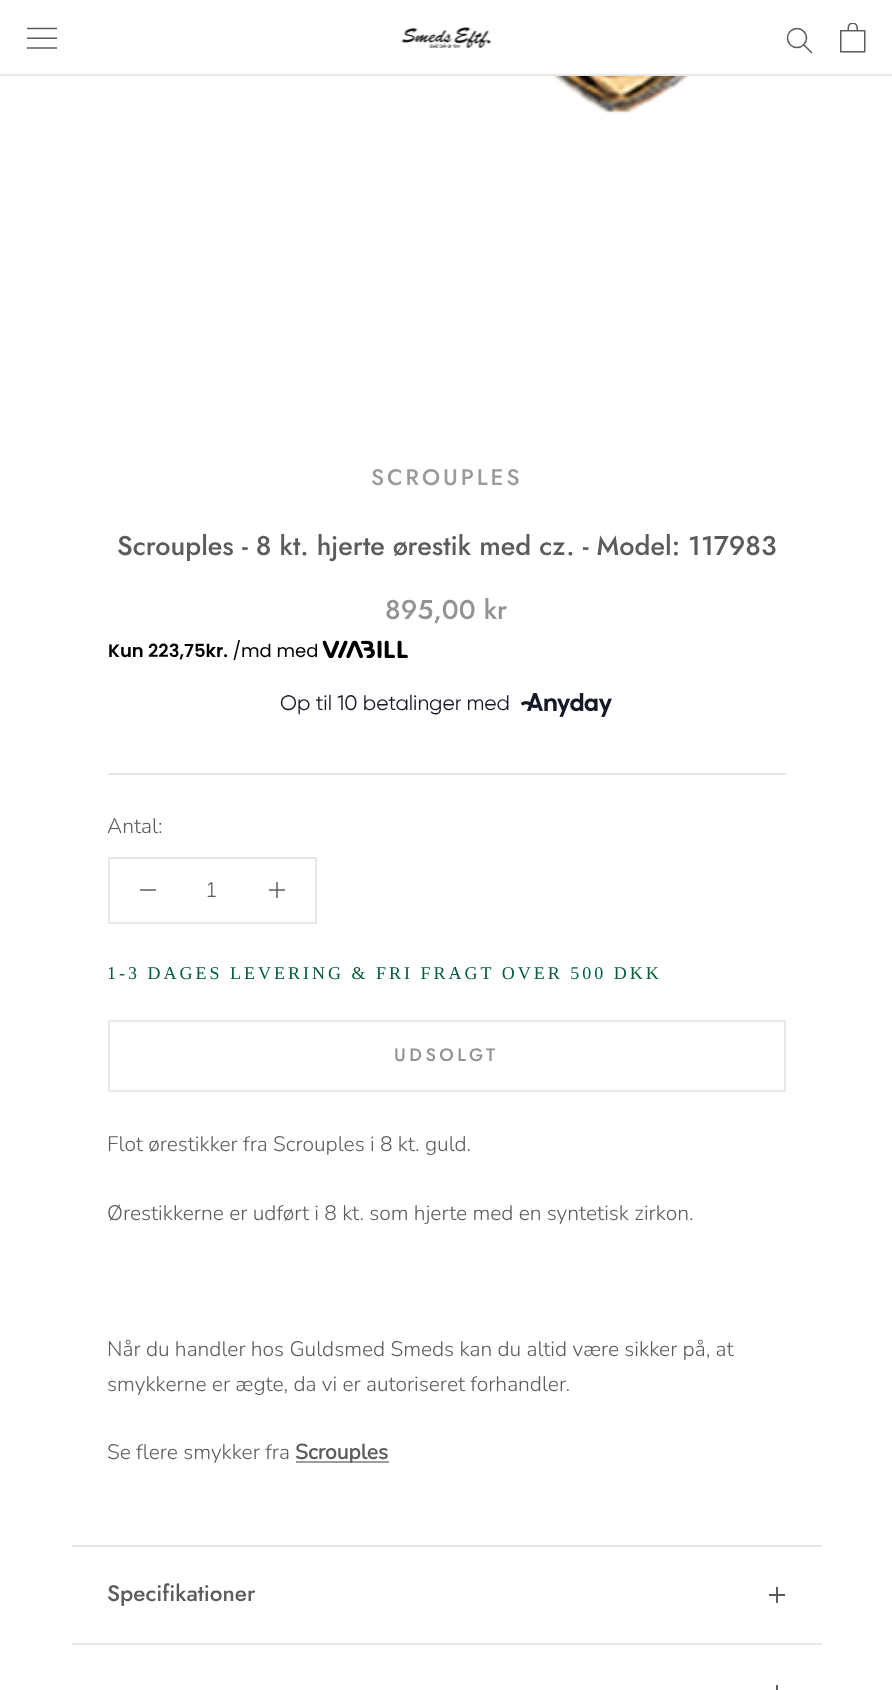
(async () => {
const canvas = document.querySelector("canvas")
canvas.width = 892
canvas.height = 1690
const c = canvas.getContext("2d")
c.miterLimit = 4
c.fontKerning = "normal"
function T(s,x,y){c.fillText(s,x,y)}
function R(x,y,w,h){c.fillRect(x,y,w,h)}
async function I(src,x,y,w,h){const img=new Image();img.src=src;await img.decode();c.drawImage(img,x,y,w,h)}
let path
c.fillStyle="#fff"
R(0,0,892,1690)
c.fillStyle="#858585"
R(269,889,16,2)
c.fillStyle="#e7e7e7"
R(0,74,892,2)
await I("1.png",27,27,30,22)
await I("2.png",401,27,91,21)
path = new Path2D("M811.5 52.5l-7.5-7.5")
c.strokeStyle="#5c5c5c"
c.lineWidth=1.5
c.lineCap="square"
c.stroke(path)
c.beginPath()
c.arc(797,38,9.5,0,7)
c.stroke()
await I("3.png",840,23,26,30)
await I("4.png",553,76,137,38)
R(108,773,678,2)
c.letterSpacing="3px"
c.font="500 22.5px Jost"
c.fillStyle="#9b9b9b"
T("SCROUPLES",371,485)
c.letterSpacing="0px"
c.font="500 27px Jost"
c.fillStyle="#5c5c5c"
T("Scrouples - 8 kt. hjerte ørestik med cz. - Model: 117983",117,555)
c.fillStyle="#939393"
T("895,00 kr",385,619)
await I("5.png",109,640,299,20)
c.font="21px Gilroy"
c.fillStyle="#151826"
T("Op til 10 betalinger med",280,710)
await I("6.png",521,693,91,24)
c.font="300 21px Nunito"
c.fillStyle="#5c5c5c"
T("Antal:",107,833)
c.strokeStyle="#e7e7e7"
c.lineWidth=2
c.strokeRect(109,858,207,65)
c.fillStyle="#858585"
R(140,889,16,2)
c.fillStyle="#5c5c5c"
T("1",205,897)
c.fillStyle="#858585"
R(276,882,2,16)
c.fillStyle="#666"
R(276,889,2,2)
c.letterSpacing="3px"
c.font="18px Liberation Serif"
c.fillStyle="#006039"
T("1-3 DAGES LEVERING & FRI FRAGT OVER 500 DKK",107,979)
c.strokeStyle="#e9e9e9"
c.strokeRect(109,1021,676,70)
c.letterSpacing="3.5px"
c.font="500 18px Jost"
c.fillStyle="#939393"
T("UDSOLGT",394,1061)
c.letterSpacing="0px"
c.font="300 21px Nunito"
c.fillStyle="#5c5c5c"
T("Flot ørestikker fra Scrouples i 8 kt. guld.",107,1151)
T("Ørestikkerne er udført i 8 kt. som hjerte med en syntetisk zirkon.",107,1220)
T("Når du handler hos Guldsmed Smeds kan du altid være sikker på, at",107,1356)
T("smykkerne er ægte, da vi er autoriseret forhandler.",107,1391)
T("Se flere smykker fra",107,1459)
c.fillStyle="#a09b9b"
R(296,1461,93,2)
c.font="bold 21px Nunito"
c.fillStyle="#5c5c5c"
T("Scrouples",295,1459)
c.fillStyle="#e7e7e7"
R(72,1545,750,2)
R(72,1643,750,2)
c.font="500 22.5px Jost"
c.fillStyle="#5c5c5c"
T("Specifikationer",107,1601)
R(776,1587,2,16)
R(769,1594,16,2)
R(776,1685,2,5)
})()
